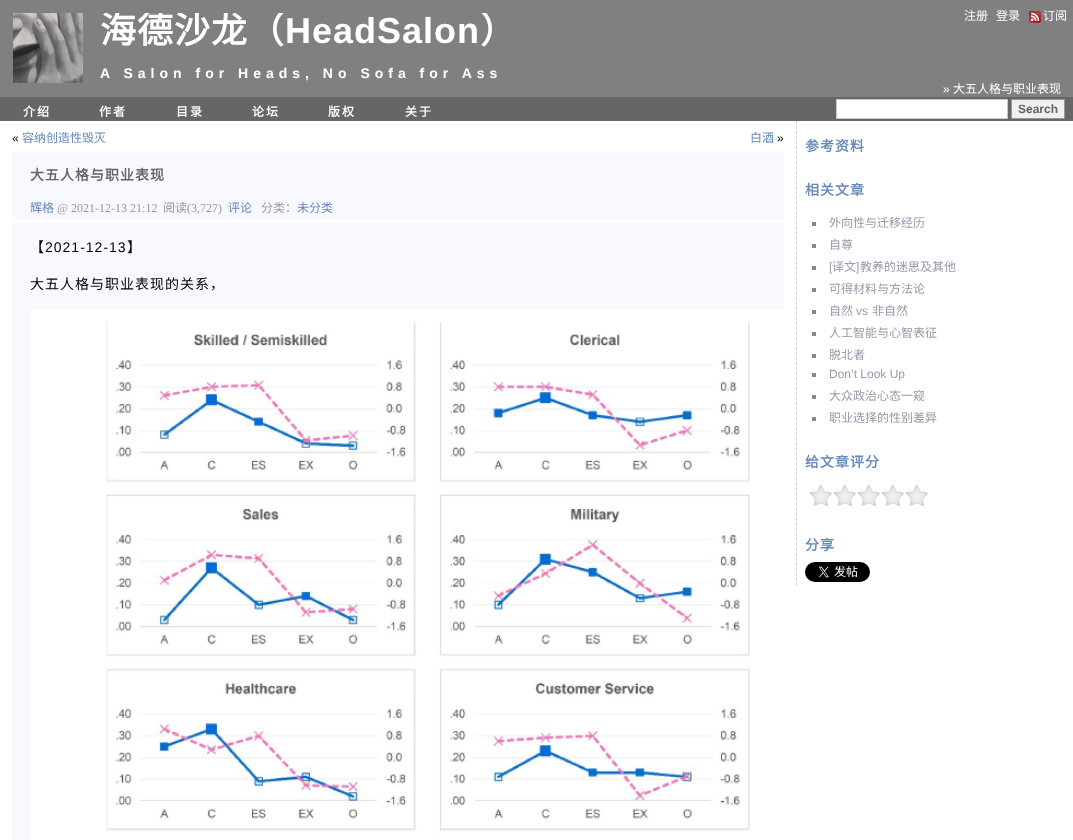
(async () => {
const canvas = document.querySelector("canvas")
canvas.width = 1073
canvas.height = 840
const c = canvas.getContext("2d")
c.miterLimit = 4
c.fontKerning = "normal"
function T(s,x,y){c.fillText(s,x,y)}
function R(x,y,w,h){c.fillRect(x,y,w,h)}
async function I(src,x,y,w,h){const img=new Image();img.src=src;await img.decode();c.drawImage(img,x,y,w,h)}
let path
c.fillStyle="#fff"
R(0,0,1073,840)
c.fillStyle="#808080"
R(0,0,1073,97)
await I("1.png",13,13,70,70)
c.save()
c.beginPath()
c.rect(100,13,430,36)
c.clip()
c.letterSpacing="1px"
c.font="bold 36px Noto Sans CJK SC"
c.fillStyle="#fff"
T("海德沙龙（",100,43)
c.restore()
c.letterSpacing="1px"
c.font="bold 36px Liberation Sans"
c.fillStyle="#fff"
T("HeadSalon",285,43)
c.save()
c.beginPath()
c.rect(100,13,430,36)
c.clip()
c.font="bold 36px Noto Sans CJK SC"
T("）",480,43)
c.restore()
c.letterSpacing="5px"
c.font="bold 14px Liberation Sans"
T("A Salon for Heads, No Sofa for Ass",100,78)
c.letterSpacing="0px"
c.font="12px Noto Sans CJK SC"
T("注册",964,20)
T("登录",996,20)
await I("2.png",1029,11,12,12)
T("订阅",1043,20)
c.font="12px Liberation Sans"
T("»",943,93)
c.font="12px Noto Sans CJK SC"
T("大五人格与职业表现",953,93)
c.fillStyle="#666"
R(0,97,1073,24)
c.letterSpacing="2px"
c.font="bold 12px Noto Sans CJK SC"
c.fillStyle="#fff"
T("介绍",23,116)
T("作者",99,116)
T("目录",176,116)
T("论坛",252,116)
T("版权",328,116)
T("关于",405,116)
c.beginPath()
c.rect(836.5,99.5,171,19)
c.fill()
c.strokeStyle="#c8c8c8"
c.stroke()
c.fillStyle="#f0f0f0"
c.beginPath()
c.rect(1011.5,99.5,53,19)
c.fill()
c.strokeStyle="#969696"
c.stroke()
c.letterSpacing="0px"
c.font="bold 12px Liberation Sans"
c.fillStyle="#646464"
T("Search",1018,113)
c.font="12px Liberation Sans"
c.fillStyle="#000"
T("«",12,142)
c.font="12px Noto Sans CJK SC"
c.fillStyle="#68b"
T("容纳创造性毁灭",22,142)
T("白酒",750,142)
c.font="12px Liberation Sans"
c.fillStyle="#000"
T("»",777,142)
c.fillStyle="#f8f8ff"
R(12,152,772,68)
c.letterSpacing="1px"
c.font="bold 14px Noto Sans CJK SC"
c.fillStyle="#646464"
T("大五人格与职业表现",30,180)
c.letterSpacing="0px"
c.font="12px Noto Sans CJK SC"
c.fillStyle="#68b"
T("辉格",30,212)
c.font="12px Liberation Serif"
c.fillStyle="#999"
T("@ 2021-12-13 21:12",57,212)
c.font="12px Noto Sans CJK SC"
T("阅读",163,212)
c.font="12px Liberation Serif"
T("(3,727)",187,212)
c.font="12px Noto Sans CJK SC"
c.fillStyle="#68b"
T("评论",228,212)
c.fillStyle="#999"
T("分类：",261,212)
c.fillStyle="#68b"
T("未分类",297,212)
c.fillStyle="#f8f8ff"
R(12,222,772,618)
c.letterSpacing="1px"
c.font="14px Noto Sans CJK SC"
c.fillStyle="#000"
T("【",30,252)
c.font="14px Liberation Sans"
T("2021-12-13",45,252)
c.font="14px Noto Sans CJK SC"
T("】",127,252)
T("大五人格与职业表现的关系，",30,289)
await I("3.png",30,310,754,530)
path = new Path2D("M796.5 121v465")
c.strokeStyle="#d3d3d3"
c.setLineDash([3,2.02])
c.stroke(path)
c.font="bold 14px Noto Sans CJK SC"
c.fillStyle="#68b"
T("参考资料",805,151)
T("相关文章",805,195)
c.fillStyle="#888"
R(812,222,4,4)
c.letterSpacing="0px"
c.font="12px Noto Sans CJK SC"
c.fillStyle="#99a"
T("外向性与迁移经历",829,227)
c.fillStyle="#888"
R(812,244,4,4)
c.fillStyle="#99a"
T("自尊",829,249)
c.fillStyle="#888"
R(812,266,4,4)
c.font="12px Liberation Sans"
c.fillStyle="#99a"
T("[",829,271)
c.font="12px Noto Sans CJK SC"
T("译文",832,271)
c.font="12px Liberation Sans"
T("]",856,271)
c.font="12px Noto Sans CJK SC"
T("教养的迷思及其他",860,271)
c.fillStyle="#888"
R(812,288,4,4)
c.fillStyle="#99a"
T("可得材料与方法论",829,293)
c.fillStyle="#888"
R(812,310,4,4)
c.fillStyle="#99a"
T("自然",829,315)
c.font="12px Liberation Sans"
T("vs",856,315)
c.font="12px Noto Sans CJK SC"
T("非自然",872,315)
c.fillStyle="#888"
R(812,332,4,4)
c.fillStyle="#99a"
T("人工智能与心智表征",829,337)
c.fillStyle="#888"
R(812,354,4,4)
c.fillStyle="#99a"
T("脱北者",829,359)
c.fillStyle="#888"
R(812,373,4,4)
c.font="12px Liberation Sans"
c.fillStyle="#99a"
T("Don’t Look Up",829,378)
c.fillStyle="#888"
R(812,395,4,4)
c.font="12px Noto Sans CJK SC"
c.fillStyle="#99a"
T("大众政治心态一窥",829,400)
c.fillStyle="#888"
R(812,417,4,4)
c.fillStyle="#99a"
T("职业选择的性别差异",829,422)
c.letterSpacing="1px"
c.font="bold 14px Noto Sans CJK SC"
c.fillStyle="#68b"
T("给文章评分",805,467)
await I("4.png",810,485,118,22)
T("分享",805,550)
await I("5.png",805,562,65,20)
})()
